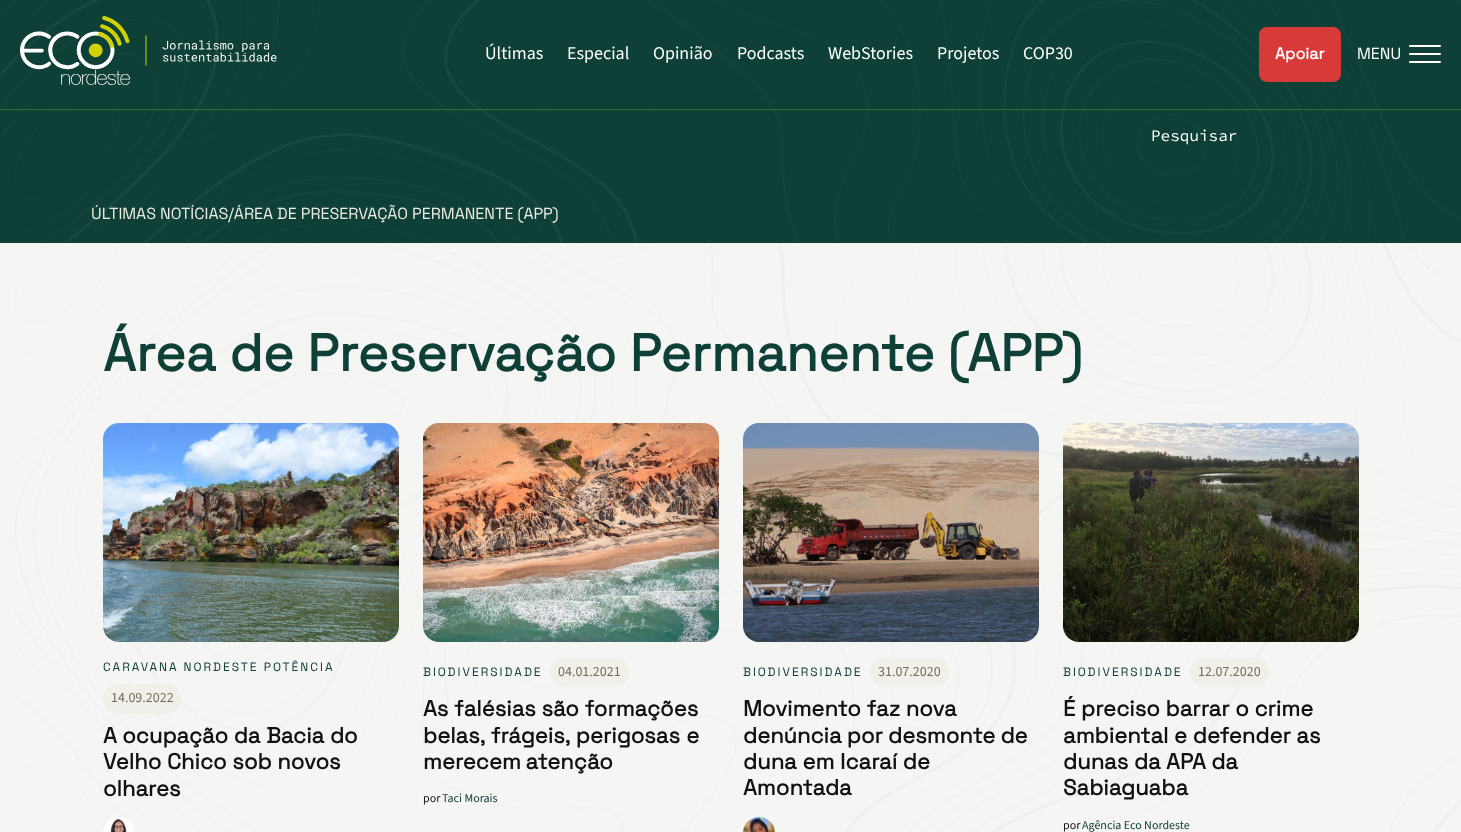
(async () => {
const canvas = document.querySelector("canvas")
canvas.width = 1461
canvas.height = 832
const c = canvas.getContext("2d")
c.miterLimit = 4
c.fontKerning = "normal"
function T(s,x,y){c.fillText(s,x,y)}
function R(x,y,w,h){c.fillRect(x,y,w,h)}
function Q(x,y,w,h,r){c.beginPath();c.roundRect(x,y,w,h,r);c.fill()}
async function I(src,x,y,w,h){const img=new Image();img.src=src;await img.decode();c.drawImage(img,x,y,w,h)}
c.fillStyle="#0e4037"
R(0,0,1461,832)
await I("1.png",0,0,1461,243)
c.fillStyle="#356a34"
R(0,109,1461,1)
await I("2.png",20,16,257,69)
c.font="18px 'Source Sans 3'"
c.fillStyle="#fff"
T("Últimas",485,59)
T("Especial",567,59)
T("Opinião",653,59)
T("Podcasts",737,59)
T("WebStories",828,59)
T("Projetos",937,59)
T("COP30",1023,59)
c.fillStyle="#d83a3a"
Q(1259,27,82,55,8)
c.font="bold 16px Space Grotesk"
c.fillStyle="#fff"
T("Apoiar",1275,59)
c.font="16px Space Grotesk"
T("MENU",1357,59)
Q(1409,53,32,2,1)
Q(1409,45,32,2,1)
Q(1409,61,32,2,1)
c.font="16px Source Code Pro"
T("Pesquisar",1151,141)
c.font="16px Space Grotesk"
c.fillStyle="#edebe6"
T("ÚLTIMAS NOTÍCIAS/ÁREA DE PRESERVAÇÃO PERMANENTE (APP)",91,219)
c.fillStyle="#f5f5f4"
R(0,243,1461,589)
await I("3.png",15,243,1446,589)
c.font="bold 52.3px Space Grotesk"
c.fillStyle="#0e4037"
T("Área de Preservação Permanente (APP)",103,371)
await I("4.png",103,423,296,219)
c.letterSpacing="2px"
c.font="12px Space Grotesk"
T("CARAVANA NORDESTE POTÊNCIA",103,671)
c.fillStyle="#f1efea"
Q(103,684,78,30,15)
c.letterSpacing="0px"
c.font="14px 'Source Sans 3'"
c.fillStyle="#746b58"
T("14.09.2022",111,702)
c.font="bold 22px Space Grotesk"
c.fillStyle="#111"
T("A ocupação da Bacia do",103,743)
T("Velho Chico sob novos",103,769)
T("olhares",103,796)
await I("5.png",103,817,32,15)
await I("6.png",423,423,296,219)
c.letterSpacing="2px"
c.font="12px Space Grotesk"
c.fillStyle="#0e4037"
T("BIODIVERSIDADE",423,676)
c.fillStyle="#f1efea"
Q(550,658,79,29,14.5)
c.letterSpacing="0px"
c.font="14px 'Source Sans 3'"
c.fillStyle="#746b58"
T("04.01.2021",558,676)
c.font="bold 22px Space Grotesk"
c.fillStyle="#111"
T("As falésias são formações",423,716)
c.wordSpacing="0.5px"
T("belas, frágeis, perigosas e",423,743)
c.wordSpacing="-1px"
T("merecem atenção",423,769)
c.wordSpacing="0px"
c.font="12px 'Source Sans 3'"
T("por",423,802)
c.fillStyle="#0e4037"
T("Taci Morais",442,802)
await I("7.png",743,423,296,219)
c.letterSpacing="2px"
c.font="12px Space Grotesk"
T("BIODIVERSIDADE",743,676)
c.fillStyle="#f1efea"
Q(870,658,79,29,14.5)
c.letterSpacing="0px"
c.font="14px 'Source Sans 3'"
c.fillStyle="#746b58"
T("31.07.2020",878,676)
c.font="bold 22px Space Grotesk"
c.fillStyle="#111"
T("Movimento faz nova",743,716)
c.wordSpacing="-0.5px"
T("denúncia por desmonte de",743,743)
c.wordSpacing="0px"
T("duna em Icaraí de",743,769)
T("Amontada",743,795)
await I("8.png",743,817,32,15)
await I("9.png",1063,423,296,219)
c.letterSpacing="2px"
c.font="12px Space Grotesk"
c.fillStyle="#0e4037"
T("BIODIVERSIDADE",1063,676)
c.fillStyle="#f1efea"
Q(1190,658,79,29,14.5)
c.letterSpacing="0px"
c.font="14px 'Source Sans 3'"
c.fillStyle="#746b58"
T("12.07.2020",1198,676)
c.font="bold 22px Space Grotesk"
c.fillStyle="#111"
T("É preciso barrar o crime",1063,716)
T("ambiental e defender as",1063,743)
T("dunas da APA da",1063,769)
T("Sabiaguaba",1063,795)
c.font="12px 'Source Sans 3'"
T("por",1063,829)
c.fillStyle="#0e4037"
T("Agência Eco Nordeste",1082,829)
})()
